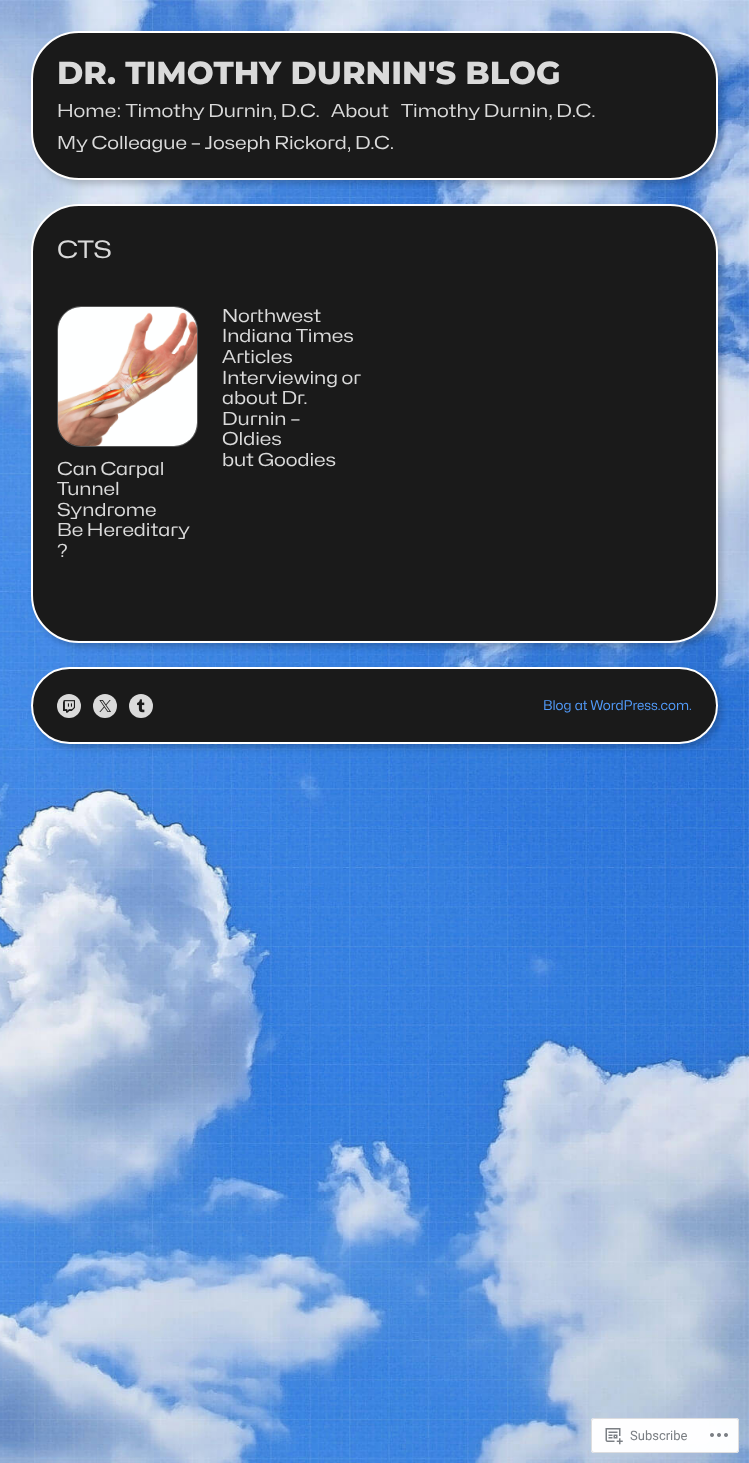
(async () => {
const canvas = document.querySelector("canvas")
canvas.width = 749
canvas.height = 1463
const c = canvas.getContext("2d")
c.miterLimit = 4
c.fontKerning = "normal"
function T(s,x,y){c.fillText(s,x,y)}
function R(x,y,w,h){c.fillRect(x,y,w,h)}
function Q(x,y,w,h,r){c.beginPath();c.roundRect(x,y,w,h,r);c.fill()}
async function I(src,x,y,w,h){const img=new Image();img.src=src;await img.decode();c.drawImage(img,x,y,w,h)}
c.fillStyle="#fff"
R(0,0,749,1463)
await I("1.png",0,0,749,1463)
c.fillStyle="#00000033"
c.filter="blur(3px)"
c.beginPath()
c.roundRect(35,35,687,149,48)
c.fill()
c.filter="none"
c.fillStyle="#1a1a1a"
c.beginPath()
c.roundRect(32,32,685,147,47)
c.fill()
c.strokeStyle="#fff"
c.lineWidth=2
c.stroke()
c.font="800 31.9px Montserrat"
c.fillStyle="#dadada"
T("DR. TIMOTHY DURNIN'S BLOG",57,84)
c.font="18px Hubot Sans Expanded"
T("Home: Timothy Durnin, D.C.",57,117)
T("About",331,117)
T("Timothy Durnin, D.C.",401,117)
T("My Colleague – Joseph Rickord, D.C.",57,149)
c.fillStyle="#00000033"
c.filter="blur(3px)"
c.beginPath()
c.roundRect(35,208,687,439,48)
c.fill()
c.filter="none"
c.fillStyle="#1a1a1a"
c.beginPath()
c.roundRect(32,205,685,437,47)
c.fill()
c.stroke()
c.font="24px Hubot Sans Expanded"
c.fillStyle="#dadada"
T("CTS",57,258)
c.font="18px Hubot Sans Expanded"
T("Northwest",222,322)
T("Indiana Times",222,342)
T("Articles",222,363)
T("Interviewing or",222,384)
T("about Dr.",222,404)
T("Durnin –",222,425)
T("Oldies",222,445)
T("but Goodies",222,466)
c.beginPath()
c.roundRect(57.5,306.5,140,140,23.5)
c.strokeStyle="#555"
c.lineWidth=1
c.stroke()
await I("2.png",58,307,139,139)
T("Can Carpal",57,475)
T("Tunnel",57,495)
T("Syndrome",57,516)
T("Be Hereditary",57,536)
T("?",57,557)
c.fillStyle="#00000033"
c.filter="blur(3px)"
c.beginPath()
c.roundRect(35,671,687,77,38.5)
c.fill()
c.filter="none"
c.fillStyle="#1a1a1a"
c.beginPath()
c.roundRect(32,668,685,75,37.5)
c.fill()
c.strokeStyle="#fff"
c.lineWidth=2
c.stroke()
c.fillStyle="#dadada"
c.beginPath()
c.arc(69,706,12,0,7)
c.fill()
await I("3.png",63,700,12,13)
c.beginPath()
c.arc(105,706,12,0,7)
c.fill()
await I("4.png",99,700,12,12)
c.beginPath()
c.arc(141,706,12,0,7)
c.fill()
await I("5.png",137,699,8,14)
c.font="13.5px Mona Sans"
c.fillStyle="#529cfc"
T("Blog at WordPress.com.",543,710)
c.fillStyle="#fffffffa"
Q(591,1418,148,35,3)
c.beginPath()
c.roundRect(591.5,1418.5,147,34,2.5)
c.strokeStyle="#dcdcdefa"
c.lineWidth=1
c.stroke()
await I("6.png",605,1428,18,17)
c.font="13px Roboto"
c.fillStyle="#7b7f84"
T("Subscribe",630,1440)
await I("7.png",710,1433,18,4)
})()
